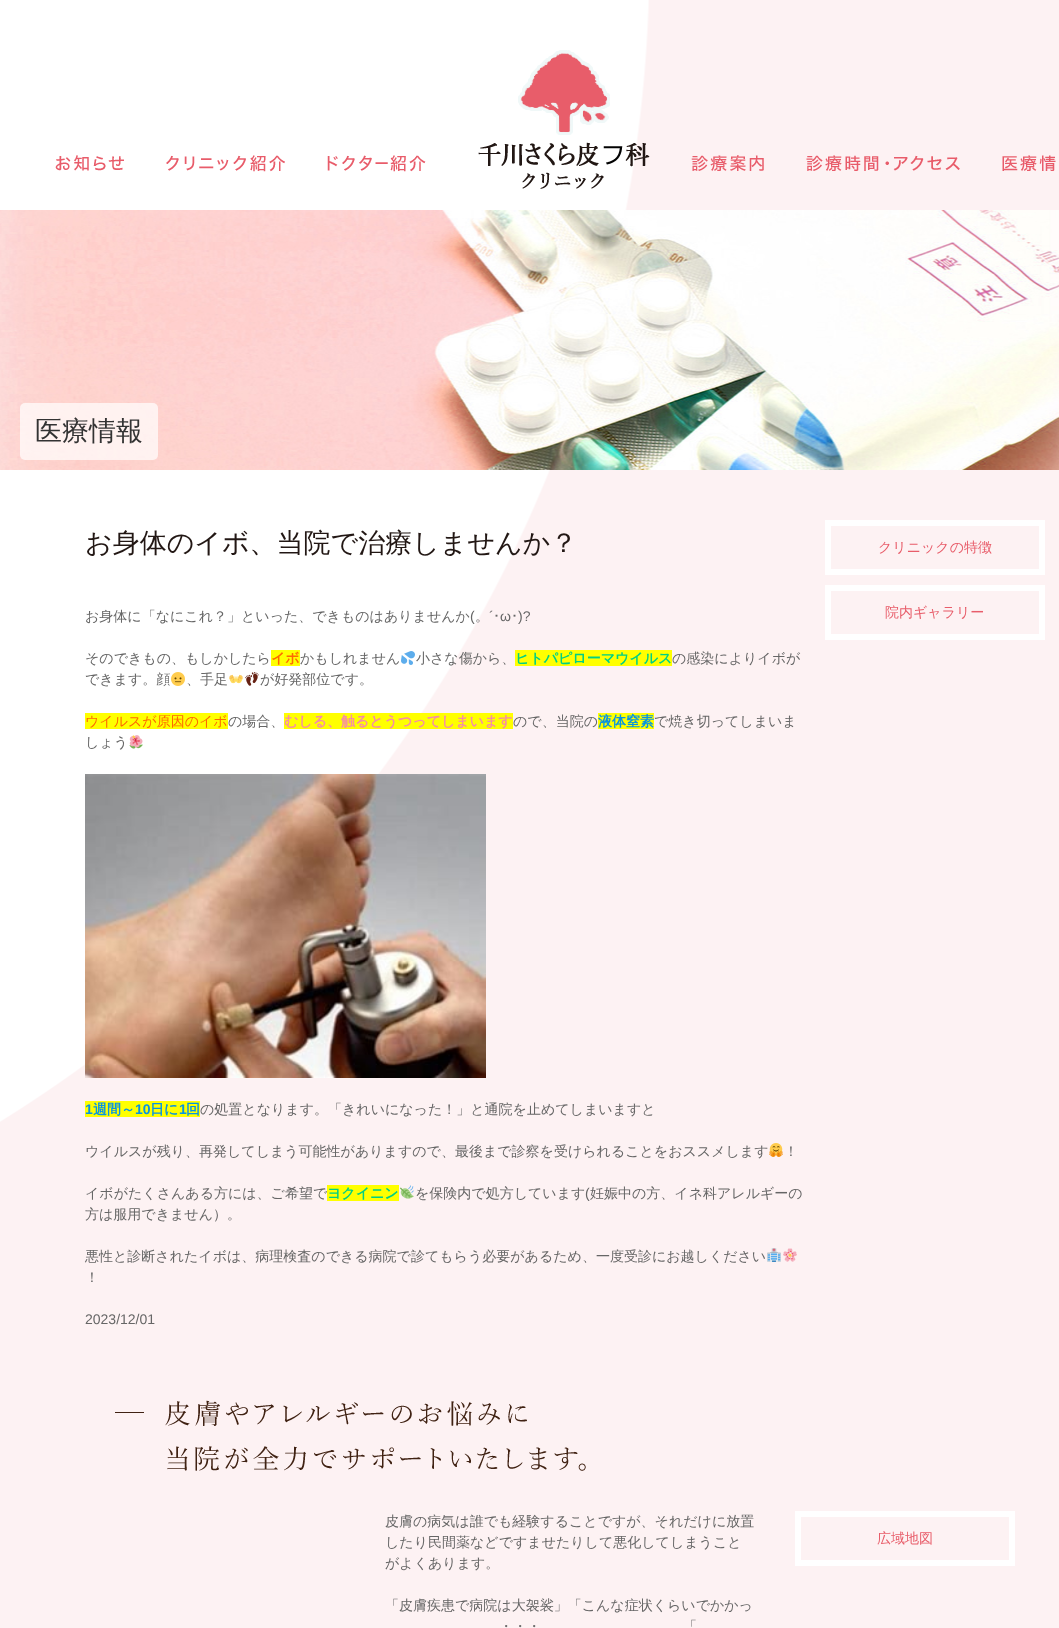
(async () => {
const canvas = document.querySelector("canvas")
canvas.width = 1059
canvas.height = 1628
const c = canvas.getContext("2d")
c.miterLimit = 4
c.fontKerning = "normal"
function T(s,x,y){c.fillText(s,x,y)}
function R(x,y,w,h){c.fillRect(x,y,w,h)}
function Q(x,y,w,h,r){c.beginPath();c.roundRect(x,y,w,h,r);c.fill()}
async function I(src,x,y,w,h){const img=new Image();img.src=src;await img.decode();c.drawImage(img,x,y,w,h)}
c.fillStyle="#fdf2f3"
R(0,0,1059,1628)
await I("1.png",0,0,649,1122)
await I("2.png",0,210,1059,260)
await I("3.png",55,155,69,16)
await I("4.png",166,155,119,17)
await I("5.png",327,155,99,17)
await I("6.png",691,155,73,16)
await I("7.png",806,155,154,16)
await I("8.png",1002,155,54,16)
await I("9.png",478,50,172,139)
c.fillStyle="#ffffffb3"
Q(20,403,138,57,5)
c.font="500 27px WenQuanYi Zen Hei"
c.fillStyle="#333"
T("医療情報",35,440)
c.fillStyle="#221714"
T("お身体のイボ、当院で治療しませんか？",85,552)
c.font="500 14px WenQuanYi Zen Hei"
c.fillStyle="#666"
T("お身体に「なにこれ？」といった、できものはありませんか",85,621)
c.font="14px Liberation Sans"
T("(",470,621)
T("´",489,621)
c.font="14px IPAPGothic"
T("･",493,621)
c.font="14px Liberation Sans"
T("ω",500,621)
c.font="14px IPAPGothic"
T("･",511,621)
c.font="14px Liberation Sans"
T(")?",518,621)
c.font="500 14px WenQuanYi Zen Hei"
T("。",475,621)
T("そのできもの、もしかしたら",85,663)
c.fillStyle="#ff0"
R(271,650,29,16)
c.font="bold 14px WenQuanYi Zen Hei"
c.fillStyle="#ff6900"
T("イボ",271,663)
c.font="500 14px WenQuanYi Zen Hei"
c.fillStyle="#666"
T("かもしれません",300,663)
await I("10.png",401,651,14,14)
T("小さな傷から、",416,663)
c.fillStyle="#ff0"
R(515,650,157,16)
c.font="bold 14px WenQuanYi Zen Hei"
c.fillStyle="#00d084"
T("ヒトパピローマウイルス",515,663)
c.font="500 14px WenQuanYi Zen Hei"
c.fillStyle="#666"
T("の感染によりイボが",672,663)
T("できます。顔",85,684)
await I("11.png",171,672,14,14)
T("、手足",186,684)
await I("12.png",229,674,14,10)
await I("13.png",245,672,14,14)
T("が好発部位です。",260,684)
c.fillStyle="#ff0"
R(85,713,143,16)
c.fillStyle="#ff6900"
T("ウイルスが原因のイボ",85,726)
c.fillStyle="#666"
T("の場合、",228,726)
c.fillStyle="#ff0"
R(284,713,229,16)
c.font="bold 14px WenQuanYi Zen Hei"
c.fillStyle="#f78da7"
T("むしる、触るとうつってしまいます",284,726)
c.font="500 14px WenQuanYi Zen Hei"
c.fillStyle="#666"
T("ので、当院の",513,726)
c.fillStyle="#ff0"
R(598,713,56,16)
c.font="bold 14px WenQuanYi Zen Hei"
c.fillStyle="#0693e3"
T("液体窒素",598,726)
c.font="500 14px WenQuanYi Zen Hei"
c.fillStyle="#666"
T("で焼き切ってしまいま",654,726)
T("しょう",85,747)
await I("14.png",129,735,14,14)
await I("15.png",85,774,401,304)
c.fillStyle="#ff0"
R(85,1101,115,16)
c.font="bold 14px Liberation Sans"
c.fillStyle="#0693e3"
T("1",85,1114)
c.font="bold 14px WenQuanYi Zen Hei"
T("週間～",93,1114)
c.font="bold 14px Liberation Sans"
T("10",135,1114)
c.font="bold 14px WenQuanYi Zen Hei"
T("日に",150,1114)
c.font="bold 14px Liberation Sans"
T("1",179,1114)
c.font="bold 14px WenQuanYi Zen Hei"
T("回",186,1114)
c.font="500 14px WenQuanYi Zen Hei"
c.fillStyle="#666"
T("の処置となります。「きれいになった！」と通院を止めてしまいますと",200,1114)
T("ウイルスが残り、再発してしまう可能性がありますので、最後まで診察を受けられることをおススメします",85,1156)
await I("16.png",769,1143,14,14)
T("！",784,1156)
T("イボがたくさんある方には、ご希望で",85,1198)
c.fillStyle="#ff0"
R(327,1185,72,16)
c.font="bold 14px WenQuanYi Zen Hei"
c.fillStyle="#00d084"
T("ヨクイニン",327,1198)
await I("17.png",400,1185,14,14)
c.font="500 14px WenQuanYi Zen Hei"
c.fillStyle="#666"
T("を保険内で処方しています",415,1198)
c.font="14px Liberation Sans"
T("(",585,1198)
c.font="500 14px WenQuanYi Zen Hei"
T("妊娠中の方、イネ科アレルギーの",590,1198)
T("方は服用できません）。",85,1219)
T("悪性と診断されたイボは、病理検査のできる病院で診てもらう必要があるため、一度受診にお越しください",85,1261)
await I("18.png",767,1248,14,14)
await I("19.png",783,1248,14,14)
T("！",85,1282)
c.font="14px Liberation Sans"
T("2023/12/01",85,1324)
c.strokeStyle="#fff"
c.lineWidth=6
c.strokeRect(828,523,214,49)
c.font="500 14px WenQuanYi Zen Hei"
c.fillStyle="#e85d6a"
T("クリニックの特徴",878,552)
c.strokeRect(828,588,214,49)
T("院内ギャラリー",885,617)
await I("20.png",115,1400,471,71)
c.fillStyle="#666"
T("皮膚の病気は誰でも経験することですが、それだけに放置",385,1526)
T("したり民間薬などですませたりして悪化してしまうこと",385,1547)
T("がよくあります。",385,1568)
T("「皮膚疾患で病院は大袈裟」「こんな症状くらいでかかっ",385,1610)
T("・・・",499,1631)
T("「",683,1631)
c.strokeRect(798,1514,214,49)
c.fillStyle="#e85d6a"
T("広域地図",877,1543)
})()
